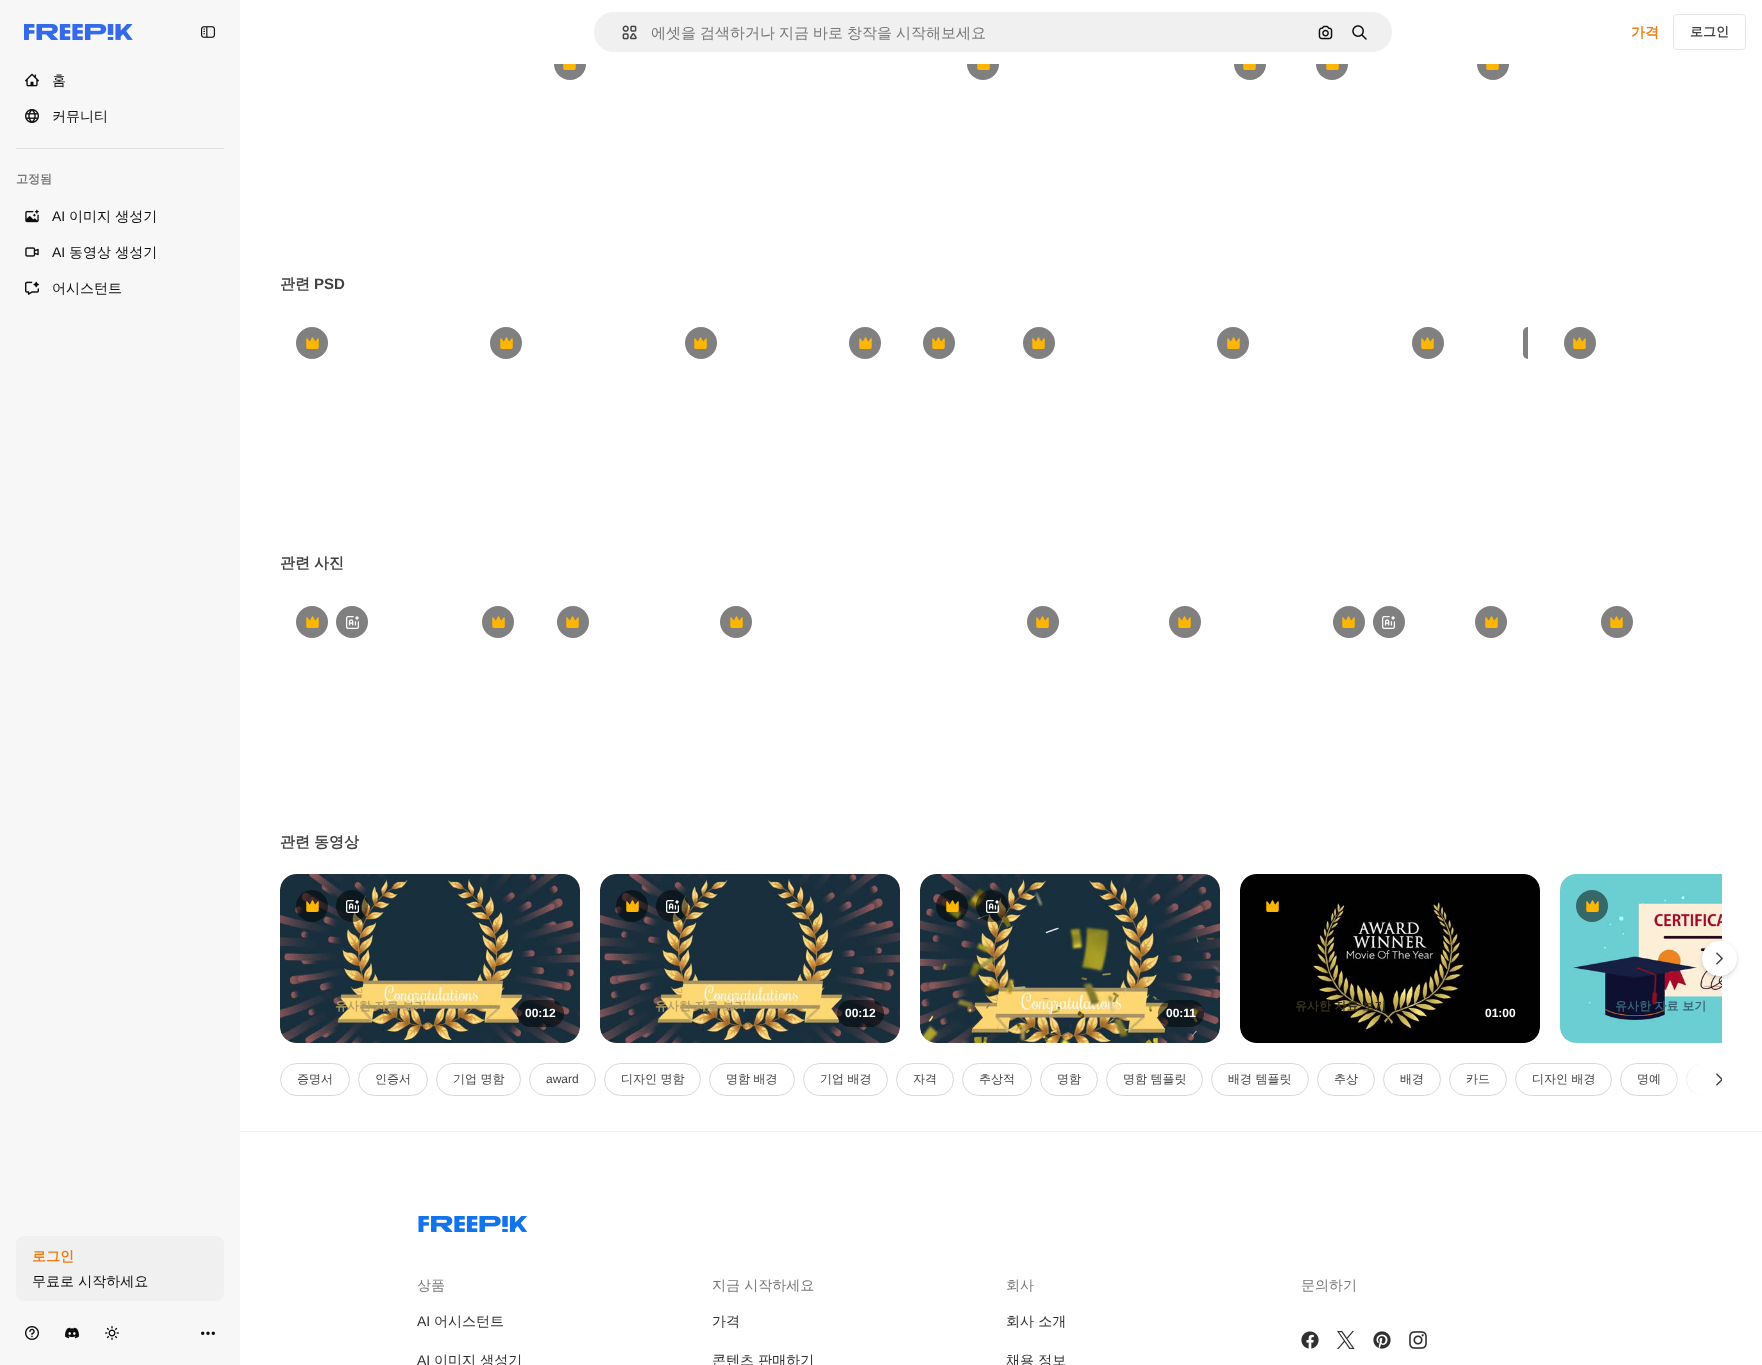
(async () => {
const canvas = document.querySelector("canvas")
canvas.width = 1762
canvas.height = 1365
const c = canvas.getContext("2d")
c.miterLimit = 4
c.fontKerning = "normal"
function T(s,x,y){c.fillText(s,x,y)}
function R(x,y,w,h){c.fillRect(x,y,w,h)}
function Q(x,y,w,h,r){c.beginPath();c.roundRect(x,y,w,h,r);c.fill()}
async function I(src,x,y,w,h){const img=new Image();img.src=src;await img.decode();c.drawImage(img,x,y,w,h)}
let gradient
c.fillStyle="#fff"
R(0,0,1762,1365)
c.fillStyle="#f7f7f7"
R(0,0,240,1365)
await I("1.png",24,24,109,16)
await I("2.png",201,26,14,12)
await I("3.png",25,73,14,14)
c.font="500 14px WenQuanYi Zen Hei"
c.fillStyle="#0d0d0d"
T("홈",52,85)
await I("4.png",25,109,14,14)
T("커뮤니티",52,121)
c.fillStyle="#e0e0e0"
R(16,148,208,1)
c.font="bold 12px WenQuanYi Zen Hei"
c.fillStyle="#787878"
T("고정됨",16,183)
await I("5.png",25,209,14,14)
c.font="14px Liberation Sans"
c.fillStyle="#0d0d0d"
T("AI",52,221)
c.font="500 14px WenQuanYi Zen Hei"
T("이미지 생성기",69,221)
await I("6.png",25,247,14,10)
c.font="14px Liberation Sans"
T("AI",52,257)
c.font="500 14px WenQuanYi Zen Hei"
T("동영상 생성기",69,257)
await I("7.png",25,281,14,14)
T("어시스턴트",52,293)
c.fillStyle="#f0f0f0"
Q(16,1236,208,65,8)
c.font="bold 14px WenQuanYi Zen Hei"
c.fillStyle="#ea7e11"
T("로그인",32,1261)
c.font="500 14px WenQuanYi Zen Hei"
c.fillStyle="#0d0d0d"
T("무료로 시작하세요",32,1286)
await I("8.png",25,1326,14,14)
await I("9.png",65,1327,14,12)
await I("10.png",105,1326,14,14)
await I("11.png",201,1331,14,4)
c.fillStyle="#808080"
c.beginPath()
c.arc(570,64,16,0,7)
c.fill()
c.beginPath()
c.arc(983,64,16,0,7)
c.fill()
c.beginPath()
c.arc(1250,64,16,0,7)
c.fill()
c.beginPath()
c.arc(1332,64,16,0,7)
c.fill()
c.beginPath()
c.arc(1493,64,16,0,7)
c.fill()
c.fillStyle="#fff"
R(554,48,955,16)
c.fillStyle="#f0f0f0"
c.beginPath()
c.roundRect(593.5,11.5,799,41,20.5)
c.fill()
c.strokeStyle="#fff"
c.stroke()
await I("12.png",622,25,15,15)
c.wordSpacing="-0.5px"
c.font="500 15px WenQuanYi Zen Hei"
c.fillStyle="#787878"
T("에셋을 검색하거나 지금 바로 창작을 시작해보세요",651,38)
await I("13.png",1318,25,15,15)
await I("14.png",1352,25,15,15)
c.wordSpacing="0px"
c.font="bold 14px WenQuanYi Zen Hei"
c.fillStyle="#ea7e11"
T("가격",1631,37)
c.beginPath()
c.roundRect(1673.5,14.5,72,35,3.5)
c.strokeStyle="#e7e7e7"
c.stroke()
c.font="bold 13px WenQuanYi Zen Hei"
c.fillStyle="#424242"
T("로그인",1690,36)
await I("15.png",563,64,13,6)
await I("15.png",977,64,13,6)
await I("15.png",1243,64,13,6)
await I("15.png",1326,64,13,6)
await I("15.png",1486,64,13,6)
c.font="bold 15px WenQuanYi Zen Hei"
T("관련",280,289)
c.font="bold 15px Liberation Sans"
T("PSD",314,289)
c.fillStyle="#808080"
c.beginPath()
c.arc(312,343,16,0,7)
c.fill()
await I("16.png",306,337,13,12)
c.beginPath()
c.arc(506,343,16,0,7)
c.fill()
await I("16.png",500,337,13,12)
c.beginPath()
c.arc(701,343,16,0,7)
c.fill()
await I("16.png",694,337,13,12)
c.beginPath()
c.arc(865,343,16,0,7)
c.fill()
await I("16.png",859,337,13,12)
c.beginPath()
c.arc(939,343,16,0,7)
c.fill()
await I("16.png",932,337,13,12)
c.beginPath()
c.arc(1039,343,16,0,7)
c.fill()
await I("16.png",1032,337,13,12)
c.beginPath()
c.arc(1233,343,16,0,7)
c.fill()
await I("16.png",1227,337,13,12)
c.beginPath()
c.arc(1428,343,16,0,7)
c.fill()
await I("16.png",1421,337,13,12)
c.beginPath()
c.roundRect(1523,327,5,32,[16,0,0,16])
c.fill()
c.beginPath()
c.arc(1580,343,16,0,7)
c.fill()
await I("16.png",1573,337,13,12)
c.wordSpacing="-0.5px"
c.font="bold 15px WenQuanYi Zen Hei"
c.fillStyle="#424242"
T("관련 사진",280,568)
c.fillStyle="#808080"
c.beginPath()
c.arc(312,622,16,0,7)
c.fill()
await I("16.png",306,616,13,12)
c.beginPath()
c.arc(352,622,16,0,7)
c.fill()
await I("17.png",346,616,13,13)
c.beginPath()
c.arc(498,622,16,0,7)
c.fill()
await I("16.png",492,616,13,12)
c.beginPath()
c.arc(573,622,16,0,7)
c.fill()
await I("16.png",566,616,13,12)
c.beginPath()
c.arc(736,622,16,0,7)
c.fill()
await I("16.png",730,616,13,12)
c.beginPath()
c.arc(1043,622,16,0,7)
c.fill()
await I("16.png",1036,616,13,12)
c.beginPath()
c.arc(1185,622,16,0,7)
c.fill()
await I("16.png",1178,616,13,12)
c.beginPath()
c.arc(1349,622,16,0,7)
c.fill()
await I("16.png",1342,616,13,12)
c.beginPath()
c.arc(1389,622,16,0,7)
c.fill()
await I("17.png",1382,616,13,13)
c.beginPath()
c.arc(1491,622,16,0,7)
c.fill()
await I("16.png",1485,616,13,12)
c.beginPath()
c.arc(1617,622,16,0,7)
c.fill()
await I("16.png",1610,616,13,12)
c.fillStyle="#424242"
T("관련 동영상",280,847)
c.fillStyle="#e6e6e6"
c.beginPath()
c.roundRect(1560,874,162,169,[16,0,0,16])
c.fill()
await I("27.png",1560,874,162,169)
c.fillStyle="#37495726"
c.filter="blur(2.5px)"
c.beginPath()
c.roundRect(1702,943,35,35,17.5)
c.fill()
c.filter="none"
c.fillStyle="#3749571a"
c.filter="blur(1px)"
c.beginPath()
c.roundRect(1702,942,35,35,17.5)
c.fill()
c.filter="none"
c.fillStyle="#fff"
c.beginPath()
c.arc(1719.5,958.5,17.5,0,7)
c.fill()
await I("18.png",1716,952,7,13)
c.fillStyle="#e6e6e6"
Q(280,874,300,169,16)
await I("21.png",280,874,300,169)
c.fillStyle="#00000080"
c.beginPath()
c.arc(312,906,16,0,7)
c.fill()
await I("19.png",306,900,13,12)
c.beginPath()
c.arc(352,906,16,0,7)
c.fill()
await I("20.png",346,900,13,13)
c.wordSpacing="0px"
c.font="bold 12px WenQuanYi Zen Hei"
c.fillStyle="#b59f62"
T("유사한 자료 보기",335,1010)
c.fillStyle="#00000080"
Q(517,1000,47,27,13.5)
c.font="bold 12px Liberation Sans"
c.fillStyle="#fff"
T("00:12",525,1017)
c.fillStyle="#e6e6e6"
Q(600,874,300,169,16)
await I("24.png",600,874,300,169)
c.fillStyle="#00000080"
c.beginPath()
c.arc(632,906,16,0,7)
c.fill()
await I("22.png",626,900,13,12)
c.beginPath()
c.arc(672,906,16,0,7)
c.fill()
await I("23.png",666,900,13,13)
c.font="bold 12px WenQuanYi Zen Hei"
c.fillStyle="#b59f62"
T("유사한 자료 보기",655,1010)
c.fillStyle="#00000080"
Q(837,1000,47,27,13.5)
c.font="bold 12px Liberation Sans"
c.fillStyle="#fff"
T("00:12",845,1017)
c.fillStyle="#e6e6e6"
Q(1240,874,300,169,16)
await I("26.png",1240,874,300,169)
await I("25.png",1266,900,13,12)
c.font="bold 12px WenQuanYi Zen Hei"
c.fillStyle="#3b341c"
T("유사한 자료 보기",1295,1010)
c.font="bold 12px Liberation Sans"
c.fillStyle="#fff"
T("01:00",1485,1017)
c.fillStyle="#366769"
c.beginPath()
c.arc(1592,906,16,0,7)
c.fill()
await I("28.png",1586,900,13,12)
c.font="bold 12px WenQuanYi Zen Hei"
c.fillStyle="#386478"
T("유사한 자료 보기",1615,1010)
c.fillStyle="#e6e6e6"
Q(920,874,300,169,16)
await I("31.png",920,874,300,169)
c.fillStyle="#00000080"
c.beginPath()
c.arc(952,906,16,0,7)
c.fill()
await I("29.png",946,900,13,12)
c.beginPath()
c.arc(992,906,16,0,7)
c.fill()
await I("30.png",986,900,13,13)
Q(1158,1000,46,27,13.5)
c.font="bold 12px Liberation Sans"
c.fillStyle="#fff"
T("00:11",1166,1017)
c.beginPath()
c.roundRect(280.5,1063.5,69,32,16)
c.strokeStyle="#d8d8d8"
c.stroke()
c.font="500 12px WenQuanYi Zen Hei"
c.fillStyle="#424242"
T("증명서",297,1083)
c.beginPath()
c.roundRect(358.5,1063.5,69,32,16)
c.stroke()
T("인증서",375,1083)
c.beginPath()
c.roundRect(436.5,1063.5,84,32,16)
c.stroke()
T("기업 명함",453,1083)
c.beginPath()
c.roundRect(529.5,1063.5,66,32,16)
c.stroke()
c.font="12px Liberation Sans"
T("award",546,1083)
c.beginPath()
c.roundRect(604.5,1063.5,96,32,16)
c.stroke()
c.font="500 12px WenQuanYi Zen Hei"
T("디자인 명함",621,1083)
c.beginPath()
c.roundRect(709.5,1063.5,85,32,16)
c.stroke()
T("명함 배경",726,1083)
c.beginPath()
c.roundRect(803.5,1063.5,84,32,16)
c.stroke()
T("기업 배경",820,1083)
c.beginPath()
c.roundRect(896.5,1063.5,57,32,16)
c.stroke()
T("자격",913,1083)
c.beginPath()
c.roundRect(962.5,1063.5,69,32,16)
c.stroke()
T("추상적",979,1083)
c.beginPath()
c.roundRect(1040.5,1063.5,57,32,16)
c.stroke()
T("명함",1057,1083)
c.beginPath()
c.roundRect(1106.5,1063.5,96,32,16)
c.stroke()
T("명함 템플릿",1123,1083)
c.beginPath()
c.roundRect(1211.5,1063.5,97,32,16)
c.stroke()
T("배경 템플릿",1228,1083)
c.beginPath()
c.roundRect(1317.5,1063.5,57,32,16)
c.stroke()
T("추상",1334,1083)
c.beginPath()
c.roundRect(1383.5,1063.5,57,32,16)
c.stroke()
T("배경",1400,1083)
c.beginPath()
c.roundRect(1449.5,1063.5,57,32,16)
c.stroke()
T("카드",1466,1083)
c.beginPath()
c.roundRect(1515.5,1063.5,96,32,16)
c.stroke()
T("디자인 배경",1532,1083)
c.beginPath()
c.roundRect(1620.5,1063.5,57,32,16)
c.stroke()
T("명예",1637,1083)
c.save()
c.beginPath()
c.rect(280,1063,1442,33)
c.clip()
c.beginPath()
c.roundRect(1686.5,1063.5,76,32,16)
c.stroke()
c.restore()
c.fillStyle="#fff"
R(1702,1063,20,33)
gradient = c.createLinearGradient(1702,1080,1667,1080)
gradient.addColorStop(0,"#fff")
gradient.addColorStop(1,"#ffffff00")
c.fillStyle = gradient
R(1670,1063,32,33)
await I("32.png",1716,1073,6,13)
c.fillStyle="#f0f0f0"
R(240,1131,1522,1)
await I("33.png",418,1216,109,16)
c.font="500 14px WenQuanYi Zen Hei"
c.fillStyle="#787878"
T("상품",417,1290)
c.font="14px Liberation Sans"
c.fillStyle="#303030"
T("AI",417,1326)
c.font="500 14px WenQuanYi Zen Hei"
T("어시스턴트",434,1326)
c.font="14px Liberation Sans"
T("AI",417,1365)
c.font="500 14px WenQuanYi Zen Hei"
T("이미지 생성기",434,1365)
c.fillStyle="#787878"
T("지금 시작하세요",712,1290)
c.fillStyle="#303030"
T("가격",712,1326)
T("콘텐츠 판매하기",712,1365)
c.fillStyle="#787878"
T("회사",1006,1290)
c.fillStyle="#303030"
T("회사 소개",1006,1326)
T("채용 정보",1006,1365)
c.fillStyle="#787878"
T("문의하기",1301,1290)
await I("34.png",1301,1331,18,18)
await I("35.png",1337,1331,18,18)
await I("36.png",1373,1331,18,18)
await I("37.png",1409,1331,18,18)
})()
